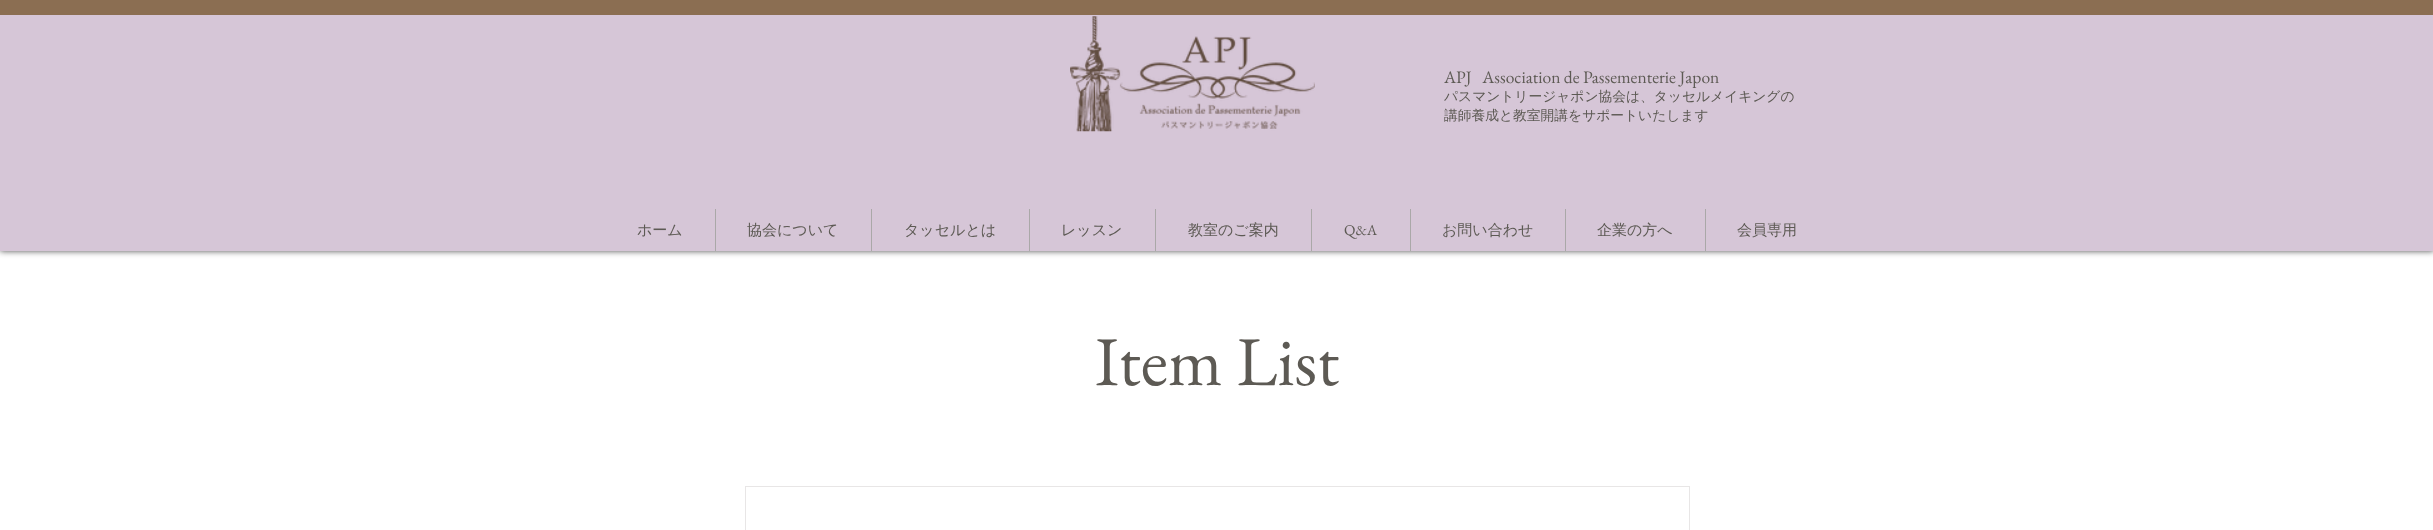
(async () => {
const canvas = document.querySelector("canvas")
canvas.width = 2433
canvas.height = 530
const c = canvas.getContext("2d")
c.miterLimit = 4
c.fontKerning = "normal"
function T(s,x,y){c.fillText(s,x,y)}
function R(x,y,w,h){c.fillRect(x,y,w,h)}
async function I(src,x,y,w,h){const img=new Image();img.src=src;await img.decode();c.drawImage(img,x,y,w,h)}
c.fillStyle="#fff"
R(0,0,2433,530)
c.fillStyle="#000000b3"
c.filter="blur(3px)"
c.beginPath()
c.rect(0,0,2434,251)
c.fill()
c.filter="none"
c.fillStyle="#d6c6d7"
R(0,15,2433,236)
c.fillStyle="#8b6e52"
R(0,0,2433,15)
await I("1.png",1070,16,245,116)
c.font="17.5px EB Garamond"
c.fillStyle="#5d5a54"
T("APJ   Association de Passementerie Japon",1444,83)
c.font="500 13.75px WenQuanYi Zen Hei"
T("パスマントリージャポン協会は、タッセルメイキングの",1444,101)
T("講師養成と教室開講をサポートいたします",1444,120)
c.font="500 15px WenQuanYi Zen Hei"
T("ホーム",637,235)
c.fillStyle="#aaa8a8"
R(715,209,1,42)
c.fillStyle="#5d5a54"
T("協会について",747,235)
c.fillStyle="#aaa8a8"
R(871,209,1,42)
c.fillStyle="#5d5a54"
T("タッセルとは",904,235)
c.fillStyle="#aaa8a8"
R(1029,209,1,42)
c.fillStyle="#5d5a54"
T("レッスン",1061,235)
c.fillStyle="#aaa8a8"
R(1155,209,1,42)
c.fillStyle="#5d5a54"
T("教室のご案内",1188,235)
c.fillStyle="#aaa8a8"
R(1311,209,1,42)
c.font="15px EB Garamond"
c.fillStyle="#5d5a54"
T("Q&A",1344,235)
c.fillStyle="#aaa8a8"
R(1410,209,1,42)
c.font="500 15px WenQuanYi Zen Hei"
c.fillStyle="#5d5a54"
T("お問い合わせ",1442,235)
c.fillStyle="#aaa8a8"
R(1565,209,1,42)
c.fillStyle="#5d5a54"
T("企業の方へ",1597,235)
c.fillStyle="#aaa8a8"
R(1705,209,1,42)
c.fillStyle="#5d5a54"
T("会員専用",1737,235)
c.font="70px EB Garamond"
T("Item List",1095,385)
c.strokeStyle="#e8e6e6"
c.strokeRect(745.5,486.5,944,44)
})()
